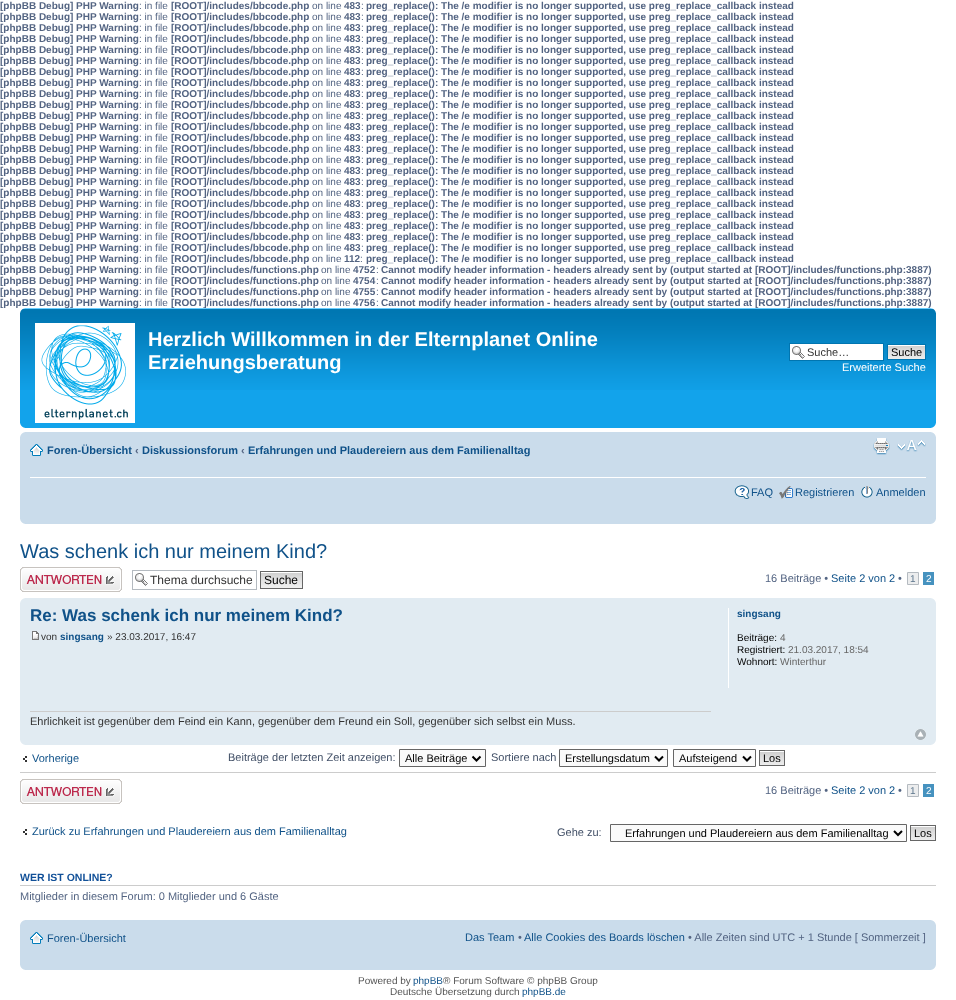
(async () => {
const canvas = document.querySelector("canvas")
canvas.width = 956
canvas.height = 1000
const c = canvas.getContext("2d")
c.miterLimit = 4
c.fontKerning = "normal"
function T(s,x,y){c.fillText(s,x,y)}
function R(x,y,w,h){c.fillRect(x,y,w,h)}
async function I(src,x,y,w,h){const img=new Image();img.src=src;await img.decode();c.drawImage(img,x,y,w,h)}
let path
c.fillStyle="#fff"
R(0,0,956,1000)
c.font="bold 10px Liberation Sans"
c.fillStyle="#536482"
T("[phpBB Debug] PHP Warning",0,9)
c.font="10px Liberation Sans"
T(": in file",139,9)
c.font="bold 10px Liberation Sans"
T("[ROOT]/includes/bbcode.php",171,9)
c.font="10px Liberation Sans"
T("on line",312,9)
c.font="bold 10px Liberation Sans"
T("483",344,9)
c.font="10px Liberation Sans"
T(":",361,9)
c.font="bold 10px Liberation Sans"
T("preg_replace(): The /e modifier is no longer supported, use preg_replace_callback instead",366,9)
T("[phpBB Debug] PHP Warning",0,20)
c.font="10px Liberation Sans"
T(": in file",139,20)
c.font="bold 10px Liberation Sans"
T("[ROOT]/includes/bbcode.php",171,20)
c.font="10px Liberation Sans"
T("on line",312,20)
c.font="bold 10px Liberation Sans"
T("483",344,20)
c.font="10px Liberation Sans"
T(":",361,20)
c.font="bold 10px Liberation Sans"
T("preg_replace(): The /e modifier is no longer supported, use preg_replace_callback instead",366,20)
T("[phpBB Debug] PHP Warning",0,31)
c.font="10px Liberation Sans"
T(": in file",139,31)
c.font="bold 10px Liberation Sans"
T("[ROOT]/includes/bbcode.php",171,31)
c.font="10px Liberation Sans"
T("on line",312,31)
c.font="bold 10px Liberation Sans"
T("483",344,31)
c.font="10px Liberation Sans"
T(":",361,31)
c.font="bold 10px Liberation Sans"
T("preg_replace(): The /e modifier is no longer supported, use preg_replace_callback instead",366,31)
T("[phpBB Debug] PHP Warning",0,42)
c.font="10px Liberation Sans"
T(": in file",139,42)
c.font="bold 10px Liberation Sans"
T("[ROOT]/includes/bbcode.php",171,42)
c.font="10px Liberation Sans"
T("on line",312,42)
c.font="bold 10px Liberation Sans"
T("483",344,42)
c.font="10px Liberation Sans"
T(":",361,42)
c.font="bold 10px Liberation Sans"
T("preg_replace(): The /e modifier is no longer supported, use preg_replace_callback instead",366,42)
T("[phpBB Debug] PHP Warning",0,53)
c.font="10px Liberation Sans"
T(": in file",139,53)
c.font="bold 10px Liberation Sans"
T("[ROOT]/includes/bbcode.php",171,53)
c.font="10px Liberation Sans"
T("on line",312,53)
c.font="bold 10px Liberation Sans"
T("483",344,53)
c.font="10px Liberation Sans"
T(":",361,53)
c.font="bold 10px Liberation Sans"
T("preg_replace(): The /e modifier is no longer supported, use preg_replace_callback instead",366,53)
T("[phpBB Debug] PHP Warning",0,64)
c.font="10px Liberation Sans"
T(": in file",139,64)
c.font="bold 10px Liberation Sans"
T("[ROOT]/includes/bbcode.php",171,64)
c.font="10px Liberation Sans"
T("on line",312,64)
c.font="bold 10px Liberation Sans"
T("483",344,64)
c.font="10px Liberation Sans"
T(":",361,64)
c.font="bold 10px Liberation Sans"
T("preg_replace(): The /e modifier is no longer supported, use preg_replace_callback instead",366,64)
T("[phpBB Debug] PHP Warning",0,75)
c.font="10px Liberation Sans"
T(": in file",139,75)
c.font="bold 10px Liberation Sans"
T("[ROOT]/includes/bbcode.php",171,75)
c.font="10px Liberation Sans"
T("on line",312,75)
c.font="bold 10px Liberation Sans"
T("483",344,75)
c.font="10px Liberation Sans"
T(":",361,75)
c.font="bold 10px Liberation Sans"
T("preg_replace(): The /e modifier is no longer supported, use preg_replace_callback instead",366,75)
T("[phpBB Debug] PHP Warning",0,86)
c.font="10px Liberation Sans"
T(": in file",139,86)
c.font="bold 10px Liberation Sans"
T("[ROOT]/includes/bbcode.php",171,86)
c.font="10px Liberation Sans"
T("on line",312,86)
c.font="bold 10px Liberation Sans"
T("483",344,86)
c.font="10px Liberation Sans"
T(":",361,86)
c.font="bold 10px Liberation Sans"
T("preg_replace(): The /e modifier is no longer supported, use preg_replace_callback instead",366,86)
T("[phpBB Debug] PHP Warning",0,97)
c.font="10px Liberation Sans"
T(": in file",139,97)
c.font="bold 10px Liberation Sans"
T("[ROOT]/includes/bbcode.php",171,97)
c.font="10px Liberation Sans"
T("on line",312,97)
c.font="bold 10px Liberation Sans"
T("483",344,97)
c.font="10px Liberation Sans"
T(":",361,97)
c.font="bold 10px Liberation Sans"
T("preg_replace(): The /e modifier is no longer supported, use preg_replace_callback instead",366,97)
T("[phpBB Debug] PHP Warning",0,108)
c.font="10px Liberation Sans"
T(": in file",139,108)
c.font="bold 10px Liberation Sans"
T("[ROOT]/includes/bbcode.php",171,108)
c.font="10px Liberation Sans"
T("on line",312,108)
c.font="bold 10px Liberation Sans"
T("483",344,108)
c.font="10px Liberation Sans"
T(":",361,108)
c.font="bold 10px Liberation Sans"
T("preg_replace(): The /e modifier is no longer supported, use preg_replace_callback instead",366,108)
T("[phpBB Debug] PHP Warning",0,119)
c.font="10px Liberation Sans"
T(": in file",139,119)
c.font="bold 10px Liberation Sans"
T("[ROOT]/includes/bbcode.php",171,119)
c.font="10px Liberation Sans"
T("on line",312,119)
c.font="bold 10px Liberation Sans"
T("483",344,119)
c.font="10px Liberation Sans"
T(":",361,119)
c.font="bold 10px Liberation Sans"
T("preg_replace(): The /e modifier is no longer supported, use preg_replace_callback instead",366,119)
T("[phpBB Debug] PHP Warning",0,130)
c.font="10px Liberation Sans"
T(": in file",139,130)
c.font="bold 10px Liberation Sans"
T("[ROOT]/includes/bbcode.php",171,130)
c.font="10px Liberation Sans"
T("on line",312,130)
c.font="bold 10px Liberation Sans"
T("483",344,130)
c.font="10px Liberation Sans"
T(":",361,130)
c.font="bold 10px Liberation Sans"
T("preg_replace(): The /e modifier is no longer supported, use preg_replace_callback instead",366,130)
T("[phpBB Debug] PHP Warning",0,141)
c.font="10px Liberation Sans"
T(": in file",139,141)
c.font="bold 10px Liberation Sans"
T("[ROOT]/includes/bbcode.php",171,141)
c.font="10px Liberation Sans"
T("on line",312,141)
c.font="bold 10px Liberation Sans"
T("483",344,141)
c.font="10px Liberation Sans"
T(":",361,141)
c.font="bold 10px Liberation Sans"
T("preg_replace(): The /e modifier is no longer supported, use preg_replace_callback instead",366,141)
T("[phpBB Debug] PHP Warning",0,152)
c.font="10px Liberation Sans"
T(": in file",139,152)
c.font="bold 10px Liberation Sans"
T("[ROOT]/includes/bbcode.php",171,152)
c.font="10px Liberation Sans"
T("on line",312,152)
c.font="bold 10px Liberation Sans"
T("483",344,152)
c.font="10px Liberation Sans"
T(":",361,152)
c.font="bold 10px Liberation Sans"
T("preg_replace(): The /e modifier is no longer supported, use preg_replace_callback instead",366,152)
T("[phpBB Debug] PHP Warning",0,163)
c.font="10px Liberation Sans"
T(": in file",139,163)
c.font="bold 10px Liberation Sans"
T("[ROOT]/includes/bbcode.php",171,163)
c.font="10px Liberation Sans"
T("on line",312,163)
c.font="bold 10px Liberation Sans"
T("483",344,163)
c.font="10px Liberation Sans"
T(":",361,163)
c.font="bold 10px Liberation Sans"
T("preg_replace(): The /e modifier is no longer supported, use preg_replace_callback instead",366,163)
T("[phpBB Debug] PHP Warning",0,174)
c.font="10px Liberation Sans"
T(": in file",139,174)
c.font="bold 10px Liberation Sans"
T("[ROOT]/includes/bbcode.php",171,174)
c.font="10px Liberation Sans"
T("on line",312,174)
c.font="bold 10px Liberation Sans"
T("483",344,174)
c.font="10px Liberation Sans"
T(":",361,174)
c.font="bold 10px Liberation Sans"
T("preg_replace(): The /e modifier is no longer supported, use preg_replace_callback instead",366,174)
T("[phpBB Debug] PHP Warning",0,185)
c.font="10px Liberation Sans"
T(": in file",139,185)
c.font="bold 10px Liberation Sans"
T("[ROOT]/includes/bbcode.php",171,185)
c.font="10px Liberation Sans"
T("on line",312,185)
c.font="bold 10px Liberation Sans"
T("483",344,185)
c.font="10px Liberation Sans"
T(":",361,185)
c.font="bold 10px Liberation Sans"
T("preg_replace(): The /e modifier is no longer supported, use preg_replace_callback instead",366,185)
T("[phpBB Debug] PHP Warning",0,196)
c.font="10px Liberation Sans"
T(": in file",139,196)
c.font="bold 10px Liberation Sans"
T("[ROOT]/includes/bbcode.php",171,196)
c.font="10px Liberation Sans"
T("on line",312,196)
c.font="bold 10px Liberation Sans"
T("483",344,196)
c.font="10px Liberation Sans"
T(":",361,196)
c.font="bold 10px Liberation Sans"
T("preg_replace(): The /e modifier is no longer supported, use preg_replace_callback instead",366,196)
T("[phpBB Debug] PHP Warning",0,207)
c.font="10px Liberation Sans"
T(": in file",139,207)
c.font="bold 10px Liberation Sans"
T("[ROOT]/includes/bbcode.php",171,207)
c.font="10px Liberation Sans"
T("on line",312,207)
c.font="bold 10px Liberation Sans"
T("483",344,207)
c.font="10px Liberation Sans"
T(":",361,207)
c.font="bold 10px Liberation Sans"
T("preg_replace(): The /e modifier is no longer supported, use preg_replace_callback instead",366,207)
T("[phpBB Debug] PHP Warning",0,218)
c.font="10px Liberation Sans"
T(": in file",139,218)
c.font="bold 10px Liberation Sans"
T("[ROOT]/includes/bbcode.php",171,218)
c.font="10px Liberation Sans"
T("on line",312,218)
c.font="bold 10px Liberation Sans"
T("483",344,218)
c.font="10px Liberation Sans"
T(":",361,218)
c.font="bold 10px Liberation Sans"
T("preg_replace(): The /e modifier is no longer supported, use preg_replace_callback instead",366,218)
T("[phpBB Debug] PHP Warning",0,229)
c.font="10px Liberation Sans"
T(": in file",139,229)
c.font="bold 10px Liberation Sans"
T("[ROOT]/includes/bbcode.php",171,229)
c.font="10px Liberation Sans"
T("on line",312,229)
c.font="bold 10px Liberation Sans"
T("483",344,229)
c.font="10px Liberation Sans"
T(":",361,229)
c.font="bold 10px Liberation Sans"
T("preg_replace(): The /e modifier is no longer supported, use preg_replace_callback instead",366,229)
T("[phpBB Debug] PHP Warning",0,240)
c.font="10px Liberation Sans"
T(": in file",139,240)
c.font="bold 10px Liberation Sans"
T("[ROOT]/includes/bbcode.php",171,240)
c.font="10px Liberation Sans"
T("on line",312,240)
c.font="bold 10px Liberation Sans"
T("483",344,240)
c.font="10px Liberation Sans"
T(":",361,240)
c.font="bold 10px Liberation Sans"
T("preg_replace(): The /e modifier is no longer supported, use preg_replace_callback instead",366,240)
T("[phpBB Debug] PHP Warning",0,251)
c.font="10px Liberation Sans"
T(": in file",139,251)
c.font="bold 10px Liberation Sans"
T("[ROOT]/includes/bbcode.php",171,251)
c.font="10px Liberation Sans"
T("on line",312,251)
c.font="bold 10px Liberation Sans"
T("483",344,251)
c.font="10px Liberation Sans"
T(":",361,251)
c.font="bold 10px Liberation Sans"
T("preg_replace(): The /e modifier is no longer supported, use preg_replace_callback instead",366,251)
T("[phpBB Debug] PHP Warning",0,262)
c.font="10px Liberation Sans"
T(": in file",139,262)
c.font="bold 10px Liberation Sans"
T("[ROOT]/includes/bbcode.php",171,262)
c.font="10px Liberation Sans"
T("on line",312,262)
c.font="bold 10px Liberation Sans"
T("112",344,262)
c.font="10px Liberation Sans"
T(":",360,262)
c.font="bold 10px Liberation Sans"
T("preg_replace(): The /e modifier is no longer supported, use preg_replace_callback instead",366,262)
T("[phpBB Debug] PHP Warning",0,273)
c.font="10px Liberation Sans"
T(": in file",139,273)
c.font="bold 10px Liberation Sans"
T("[ROOT]/includes/functions.php",171,273)
c.font="10px Liberation Sans"
T("on line",321,273)
c.font="bold 10px Liberation Sans"
T("4752",353,273)
c.font="10px Liberation Sans"
T(":",376,273)
c.font="bold 10px Liberation Sans"
T("Cannot modify header information - headers already sent by (output started at [ROOT]/includes/functions.php:3887)",381,273)
T("[phpBB Debug] PHP Warning",0,284)
c.font="10px Liberation Sans"
T(": in file",139,284)
c.font="bold 10px Liberation Sans"
T("[ROOT]/includes/functions.php",171,284)
c.font="10px Liberation Sans"
T("on line",321,284)
c.font="bold 10px Liberation Sans"
T("4754",353,284)
c.font="10px Liberation Sans"
T(":",376,284)
c.font="bold 10px Liberation Sans"
T("Cannot modify header information - headers already sent by (output started at [ROOT]/includes/functions.php:3887)",381,284)
T("[phpBB Debug] PHP Warning",0,295)
c.font="10px Liberation Sans"
T(": in file",139,295)
c.font="bold 10px Liberation Sans"
T("[ROOT]/includes/functions.php",171,295)
c.font="10px Liberation Sans"
T("on line",321,295)
c.font="bold 10px Liberation Sans"
T("4755",353,295)
c.font="10px Liberation Sans"
T(":",376,295)
c.font="bold 10px Liberation Sans"
T("Cannot modify header information - headers already sent by (output started at [ROOT]/includes/functions.php:3887)",381,295)
await I("1.png",20,308,916,82)
await I("2.png",20,308,5,5)
T("[phpBB Debug] PHP Warning",0,306)
c.font="10px Liberation Sans"
T(": in file",139,306)
c.font="bold 10px Liberation Sans"
T("[ROOT]/includes/functions.php",171,306)
c.font="10px Liberation Sans"
T("on line",321,306)
c.font="bold 10px Liberation Sans"
T("4756",353,306)
c.font="10px Liberation Sans"
T(":",376,306)
await I("3.png",931,308,5,5)
c.font="bold 10px Liberation Sans"
T("Cannot modify header information - headers already sent by (output started at [ROOT]/includes/functions.php:3887)",381,306)
c.fillStyle="#12a3eb"
R(20,390,916,38)
await I("4.png",35,323,100,100)
c.font="bold 20px Liberation Sans"
c.fillStyle="#fff"
T("Herzlich Willkommen in der Elternplanet Online",148,346)
T("Erziehungsberatung",148,369)
R(790,344,93,16)
await I("5.png",792,346,13,13)
c.strokeStyle="#0075b0"
c.strokeRect(789.5,343.5,94,17)
c.font="11px Liberation Sans"
c.fillStyle="#333"
T("Suche…",807,356)
await I("6.png",888,345,37,14)
c.strokeRect(887.5,344.5,38,15)
c.fillStyle="#000"
T("Suche",891,356)
c.fillStyle="#fff"
T("Erweiterte Suche",842,371)
await I("7.png",20,423,5,5)
await I("8.png",931,423,5,5)
c.fillStyle="#cadceb"
R(20,432,916,92)
await I("9.png",20,432,5,5)
await I("10.png",931,432,5,5)
c.fillStyle="#fff"
R(30,477,896,1)
await I("11.png",30,444,13,12)
c.font="bold 11px Liberation Sans"
c.fillStyle="#105289"
T("Foren-Übersicht",47,454)
c.fillStyle="#536482"
T("‹",135,454)
c.fillStyle="#105289"
T("Diskussionsforum",142,454)
c.fillStyle="#536482"
T("‹",241,454)
c.fillStyle="#105289"
T("Erfahrungen und Plaudereiern aus dem Familienalltag",248,454)
await I("12.png",873,438,17,17)
await I("13.png",897,440,29,12)
await I("14.png",734,485,16,14)
c.font="11px Liberation Sans"
T("FAQ",751,496)
await I("15.png",779,486,14,13)
T("Registrieren",795,496)
await I("16.png",861,486,12,12)
T("Anmelden",876,496)
await I("17.png",20,519,5,5)
await I("18.png",931,519,5,5)
c.font="20px Liberation Sans"
T("Was schenk ich nur meinem Kind?",20,558)
await I("19.png",20,567,102,25)
await I("5.png",135,573,13,13)
c.strokeStyle="#b4bac0"
c.strokeRect(132.5,570.5,124,19)
c.font="12px Liberation Sans"
c.fillStyle="#333"
T("Thema durchsuche",150,584)
await I("20.png",261,572,41,16)
c.strokeStyle="#666"
c.strokeRect(260.5,571.5,42,17)
c.fillStyle="#000"
T("Suche",264,584)
c.font="11px Liberation Sans"
c.fillStyle="#536482"
T("16 Beiträge •",765,582)
c.fillStyle="#105289"
T("Seite 2 von 2",831,582)
c.fillStyle="#536482"
T("•",898,582)
c.fillStyle="#ecedee"
c.beginPath()
c.rect(907.5,572.5,11,12)
c.fill()
c.strokeStyle="#b4bac0"
c.stroke()
c.font="10px Liberation Sans"
c.fillStyle="#5c758c"
T("1",910,582)
c.fillStyle="#4692bf"
R(923,572,11,13)
c.fillStyle="#fff"
T("2",926,582)
c.fillStyle="#e1ebf2"
R(20,598,916,147)
await I("21.png",20,598,5,5)
await I("22.png",931,598,5,5)
c.font="bold 17px Liberation Sans"
c.fillStyle="#105289"
T("Re: Was schenk ich nur meinem Kind?",30,621)
await I("23.png",32,631,7,9)
c.font="10px Liberation Sans"
c.fillStyle="#333"
T("von",41,640)
c.font="bold 10px Liberation Sans"
c.fillStyle="#105289"
T("singsang",60,640)
c.font="10px Liberation Sans"
c.fillStyle="#333"
T("» 23.03.2017, 16:47",107,640)
c.fillStyle="#ccc"
R(30,711,681,1)
c.font="11px Liberation Sans"
c.fillStyle="#333"
T("Ehrlichkeit ist gegenüber dem Feind ein Kann, gegenüber dem Freund ein Soll, gegenüber sich selbst ein Muss.",30,725)
c.fillStyle="#fff"
R(728,608,1,80)
c.font="bold 10px Liberation Sans"
c.fillStyle="#105289"
T("singsang",737,617)
c.font="10px Liberation Sans"
c.fillStyle="#000"
T("Beiträge:",737,641)
c.fillStyle="#666"
T("4",780,641)
c.fillStyle="#000"
T("Registriert:",737,653)
c.fillStyle="#666"
T("21.03.2017, 18:54",788,653)
c.fillStyle="#000"
T("Wohnort:",737,665)
c.fillStyle="#666"
T("Winterthur",780,665)
await I("24.png",915,729,11,11)
await I("25.png",20,740,5,5)
await I("26.png",931,740,5,5)
await I("27.png",23,756,4,6)
c.font="11px Liberation Sans"
c.fillStyle="#105289"
T("Vorherige",32,762)
c.fillStyle="#425067"
T("Beiträge der letzten Zeit anzeigen:",228,761)
c.fillStyle="#fafafa"
c.beginPath()
c.rect(399.5,749.5,86,17)
c.fill()
c.strokeStyle="#666"
c.stroke()
path = new Path2D("M472.5 756.5l4 4l4-4")
c.strokeStyle="#000"
c.lineWidth=2
c.stroke(path)
c.fillStyle="#000"
T("Alle Beiträge",405,762)
c.fillStyle="#425067"
T("Sortiere nach",491,761)
c.fillStyle="#fafafa"
c.beginPath()
c.rect(559.5,749.5,108,17)
c.fill()
c.strokeStyle="#666"
c.lineWidth=1
c.stroke()
path = new Path2D("M655 756.5l4 4l4-4")
c.strokeStyle="#000"
c.lineWidth=2
c.stroke(path)
c.fillStyle="#000"
T("Erstellungsdatum",565,762)
c.fillStyle="#fafafa"
c.beginPath()
c.rect(673.5,749.5,82,17)
c.fill()
c.strokeStyle="#666"
c.lineWidth=1
c.stroke()
path = new Path2D("M743 756.5l4 4l4-4")
c.strokeStyle="#000"
c.lineWidth=2
c.stroke(path)
c.fillStyle="#000"
T("Aufsteigend",679,762)
await I("28.png",760,751,24,14)
c.strokeStyle="#666"
c.lineWidth=1
c.strokeRect(759.5,750.5,25,15)
T("Los",763,762)
c.fillStyle="#ccc"
R(20,772,916,1)
await I("19.png",20,779,102,25)
c.fillStyle="#536482"
T("16 Beiträge •",765,794)
c.fillStyle="#105289"
T("Seite 2 von 2",831,794)
c.fillStyle="#536482"
T("•",898,794)
c.fillStyle="#ecedee"
c.beginPath()
c.rect(907.5,784.5,11,12)
c.fill()
c.strokeStyle="#b4bac0"
c.stroke()
c.font="10px Liberation Sans"
c.fillStyle="#5c758c"
T("1",910,794)
c.fillStyle="#4692bf"
R(923,784,11,13)
c.fillStyle="#fff"
T("2",926,794)
await I("27.png",23,829,4,6)
c.font="11px Liberation Sans"
c.fillStyle="#105289"
T("Zurück zu Erfahrungen und Plaudereiern aus dem Familienalltag",32,835)
c.fillStyle="#425067"
T("Gehe zu:",557,836)
c.fillStyle="#fafafa"
c.beginPath()
c.rect(610.5,824.5,296,17)
c.fill()
c.strokeStyle="#666"
c.stroke()
path = new Path2D("M894 831l4 4l4-4")
c.strokeStyle="#000"
c.lineWidth=2
c.stroke(path)
c.fillStyle="#000"
T("Erfahrungen und Plaudereiern aus dem Familienalltag",625,837)
await I("28.png",911,826,24,14)
c.strokeStyle="#666"
c.lineWidth=1
c.strokeRect(910.5,825.5,25,15)
T("Los",914,837)
c.fillStyle="#ccc"
R(20,885,916,1)
c.font="bold 10.5px Liberation Sans"
c.fillStyle="#115098"
T("WER IST ONLINE?",20,881)
c.font="11px Liberation Sans"
c.fillStyle="#536482"
T("Mitglieder in diesem Forum: 0 Mitglieder und 6 Gäste",20,900)
c.fillStyle="#cadceb"
R(20,920,916,50)
await I("9.png",20,920,5,5)
await I("10.png",931,920,5,5)
await I("11.png",30,932,13,12)
c.fillStyle="#105289"
T("Foren-Übersicht",47,942)
T("Das Team",465,941)
c.fillStyle="#536482"
T("•",518,941)
c.fillStyle="#105289"
T("Alle Cookies des Boards löschen",524,941)
c.fillStyle="#536482"
T("• Alle Zeiten sind UTC + 1 Stunde [ Sommerzeit ]",688,941)
await I("17.png",20,965,5,5)
await I("18.png",931,965,5,5)
c.font="10px Liberation Sans"
c.fillStyle="#555"
T("Powered by",358,984)
c.fillStyle="#105289"
T("phpBB",413,984)
c.fillStyle="#555"
T("® Forum Software © phpBB Group",443,984)
T("Deutsche Übersetzung durch",390,995)
c.fillStyle="#105289"
T("phpBB.de",522,995)
})()
